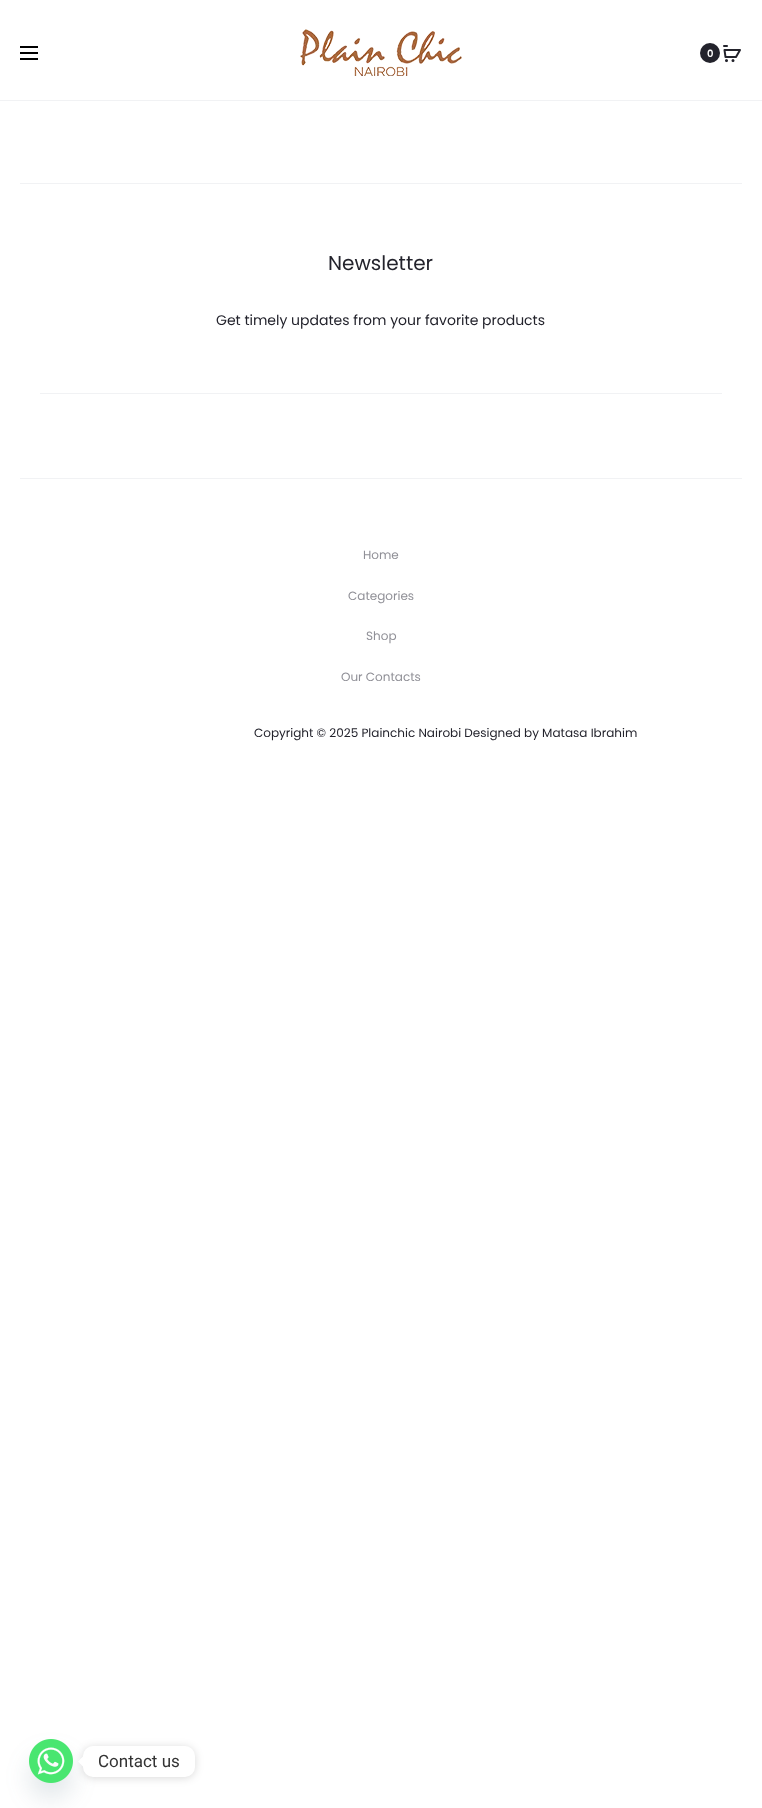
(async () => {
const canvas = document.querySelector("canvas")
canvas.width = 762
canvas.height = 1808
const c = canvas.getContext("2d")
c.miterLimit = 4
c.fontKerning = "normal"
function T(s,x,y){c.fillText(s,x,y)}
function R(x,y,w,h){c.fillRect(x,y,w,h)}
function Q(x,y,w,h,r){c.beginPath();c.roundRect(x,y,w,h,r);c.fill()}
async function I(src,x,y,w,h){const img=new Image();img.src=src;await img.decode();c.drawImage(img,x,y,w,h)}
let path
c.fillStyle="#fff"
R(0,0,762,1808)
c.fillStyle="#f1f2f4"
R(0,100,762,1)
c.fillStyle="#000"
R(20,52,18,2)
R(20,46,18,2)
R(20,58,18,2)
await I("1.png",300,29,162,47)
c.fillStyle="#23232c"
c.beginPath()
c.arc(710,53,10,0,7)
c.fill()
c.font="600 10px Poppins"
c.fillStyle="#fff"
T("0",707,57)
await I("2.png",723,45,18,18)
c.fillStyle="#f1f2f4"
R(20,183,722,1)
c.font="20px Poppins"
c.fillStyle="#23232c"
T("Newsletter",328,270)
c.font="14px Poppins"
T("Get timely updates from your favorite products",216,325)
c.fillStyle="#f1f2f4"
R(40,393,682,1)
R(20,478,722,1)
c.font="12px Poppins"
c.fillStyle="#909097"
T("Home",363,559)
T("Categories",348,600)
T("Shop",366,640)
T("Our Contacts",341,681)
c.fillStyle="#23232c"
T("Copyright © 2025 Plainchic Nairobi Designed by Matasa Ibrahim",254,737)
c.fillStyle="#49687e29"
c.filter="blur(12px)"
c.beginPath()
c.roundRect(29,1755,44,44,22)
c.fill()
c.filter="none"
await I("3.png",29,1739,44,44)
c.fillStyle="#00000026"
c.filter="blur(4px)"
c.beginPath()
c.roundRect(83,1747,112,31,10)
c.fill()
c.filter="none"
c.fillStyle="#fff"
Q(83,1746,112,31,10)
path = new Path2D("M83 1756.5v10l-5-5z")
c.fill(path)
c.font="17px Roboto"
c.fillStyle="#333"
T("Contact us",98,1767)
})()
